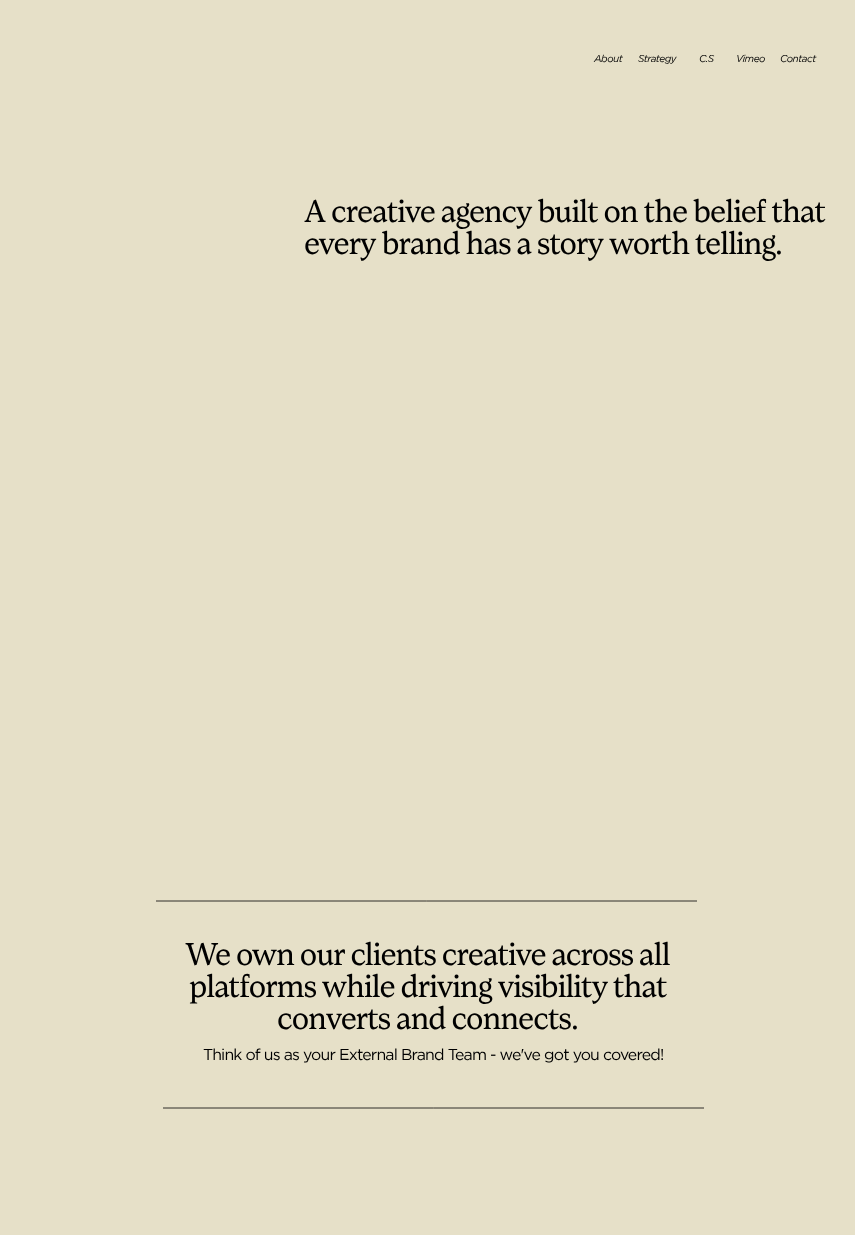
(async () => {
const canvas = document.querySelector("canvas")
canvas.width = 855
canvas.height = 1235
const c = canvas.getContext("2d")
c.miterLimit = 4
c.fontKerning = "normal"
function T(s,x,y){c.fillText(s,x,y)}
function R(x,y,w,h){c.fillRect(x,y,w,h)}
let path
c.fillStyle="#e6e0c8"
R(0,0,855,1235)
c.letterSpacing="-0.5px"
c.font="italic 10px Gotham"
c.fillStyle="#000"
T("About",594,62)
T("Strategy",638,62)
T("C.S",699,62)
T("Vimeo",736,62)
T("Contact",780,62)
c.letterSpacing="-0.83px"
c.font="31.75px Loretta"
T("A creative agency built on the belief that",304,222)
T("every brand has a story worth telling.",304,254)
path = new Path2D("M156 901h541")
c.strokeStyle="#000"
c.lineWidth=0.8
c.stroke(path)
T("We own our clients creative across all",185,965)
T("platforms while driving visibility that",189,997)
T("converts and connects.",277,1029)
c.font="15.85px Gotham"
T("Think of us as your External Brand Team - we've got you covered!",203,1060)
path = new Path2D("M163 1108h541")
c.stroke(path)
})()
